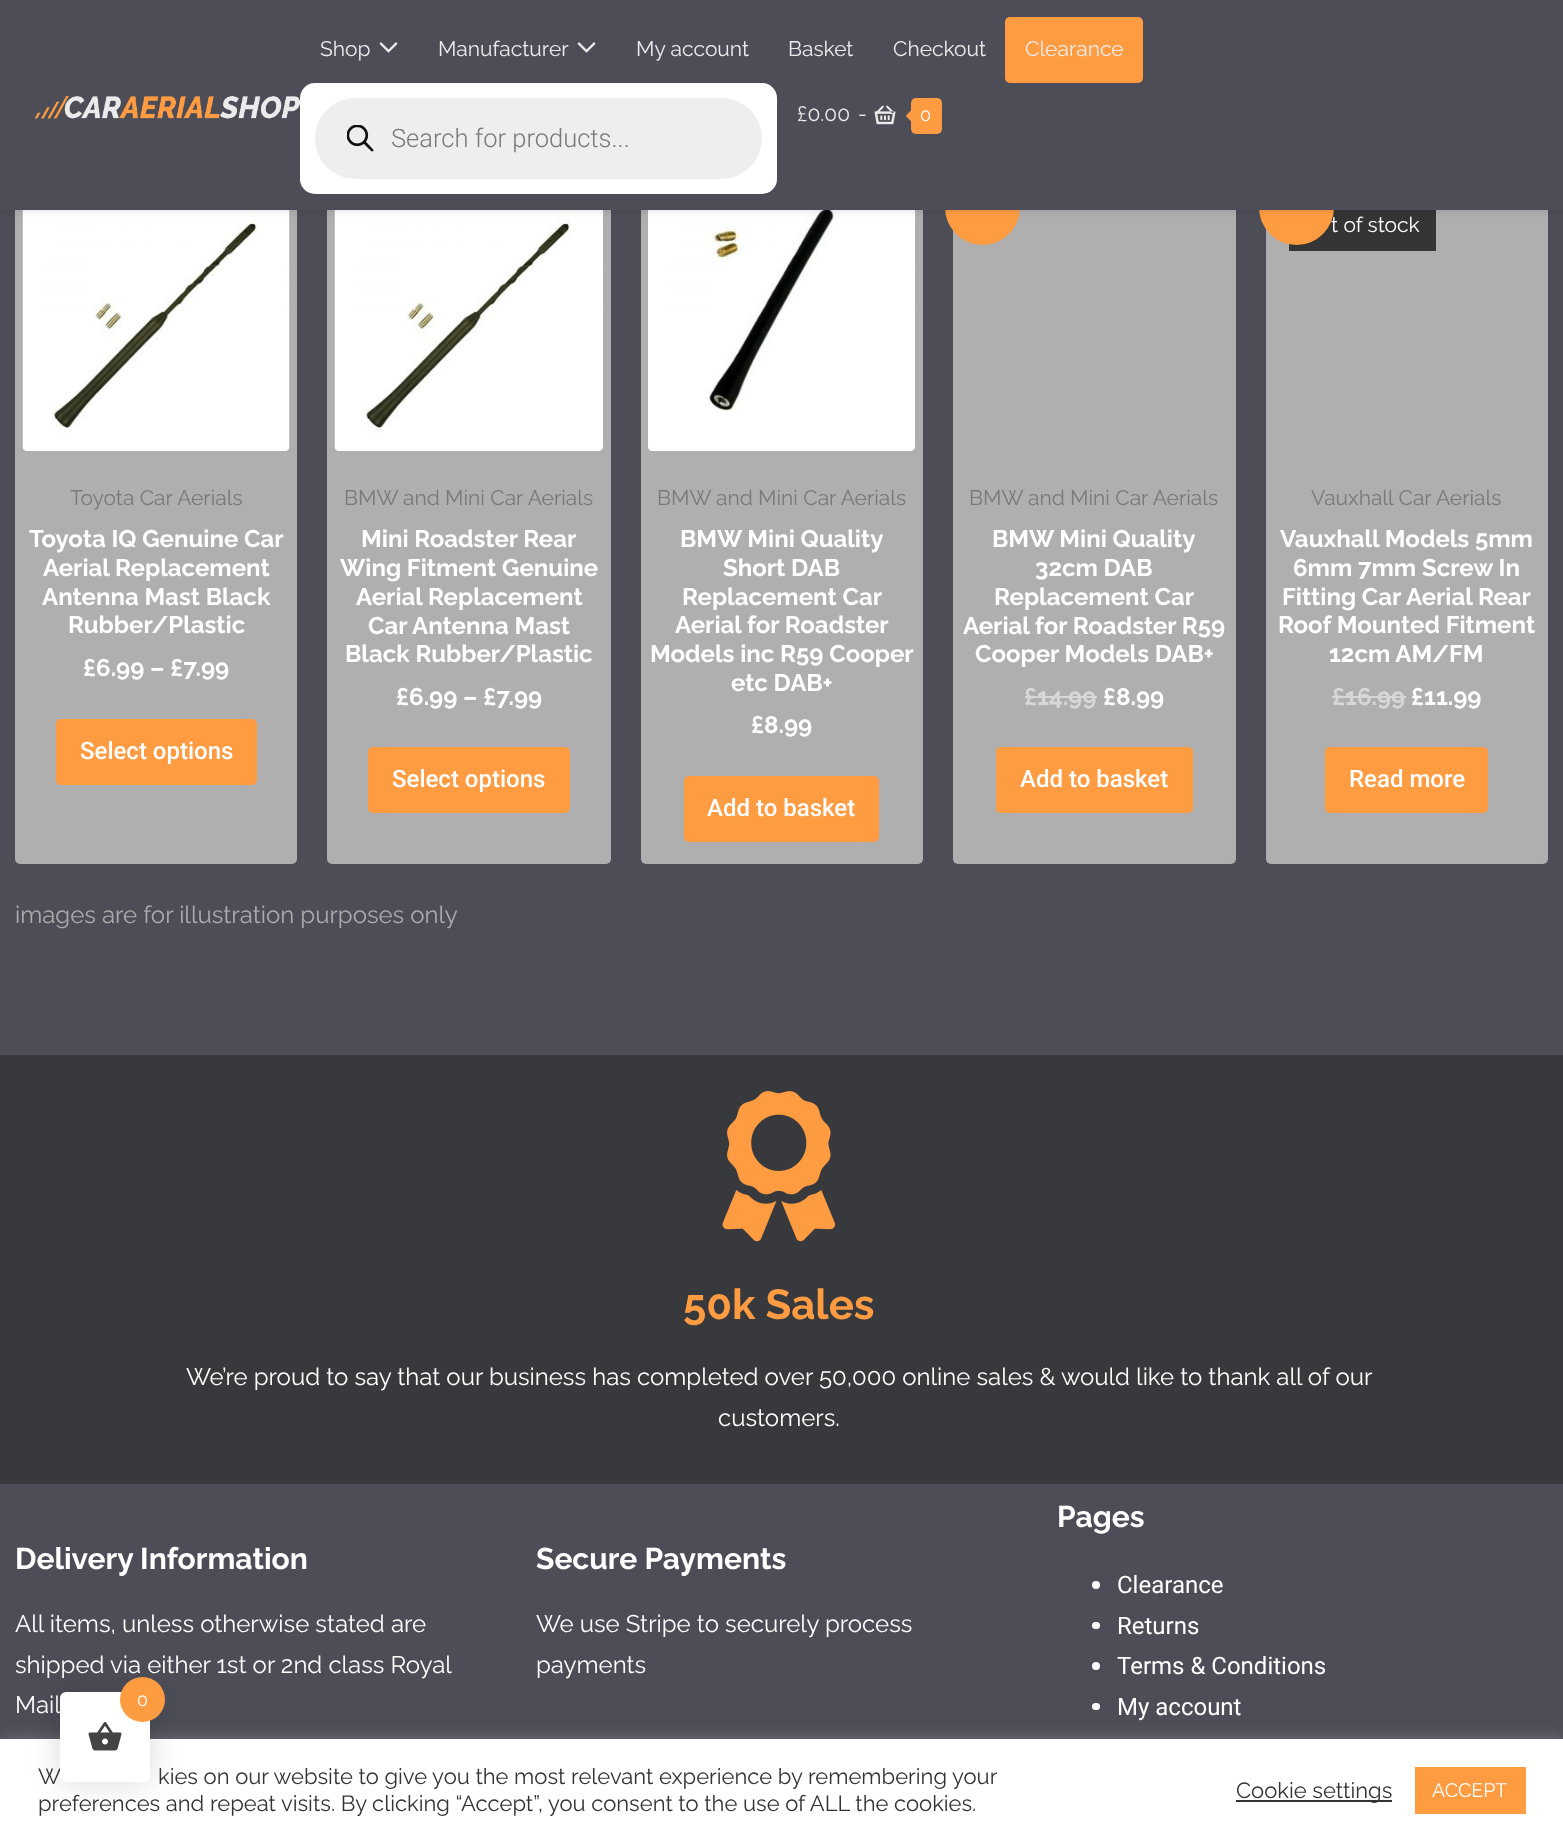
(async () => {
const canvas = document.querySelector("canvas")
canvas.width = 1563
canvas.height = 1842
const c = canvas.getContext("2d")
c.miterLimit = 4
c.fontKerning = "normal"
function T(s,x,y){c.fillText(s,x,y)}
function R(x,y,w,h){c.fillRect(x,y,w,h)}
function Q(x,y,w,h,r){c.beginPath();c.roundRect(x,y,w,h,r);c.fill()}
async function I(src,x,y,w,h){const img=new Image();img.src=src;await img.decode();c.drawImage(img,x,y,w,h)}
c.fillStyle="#4c4d57"
R(0,0,1563,1842)
c.fillStyle="#afafaf"
Q(15,177,282,687,5)
await I("6.png",22,210,268,241)
Q(327,177,284,687,5)
await I("7.png",334,210,269,241)
Q(641,177,282,687,5)
await I("8.png",648,210,267,241)
Q(953,177,283,687,5)
c.fillStyle="#ff9c42"
c.beginPath()
c.arc(982.5,207.5,37.5,0,7)
c.fill()
c.fillStyle="#afafaf"
Q(1266,177,282,687,5)
c.fillStyle="#353535"
R(1289,210,147,41)
c.font="21px Raleway"
c.fillStyle="#fff"
T("t of stock",1331,232)
c.fillStyle="#ff9c42"
c.beginPath()
c.arc(1296.5,207.5,37.5,0,7)
c.fill()
c.fillStyle="#00000026"
c.filter="blur(4px)"
c.beginPath()
c.rect(0,0,1563,210)
c.fill()
c.filter="none"
c.fillStyle="#4c4d57"
R(0,0,1563,210)
await I("1.png",34,96,266,23)
c.fillStyle="#ebebeb"
T("Shop",320,56)
await I("2.png",379,42,19,11)
T("Manufacturer",438,56)
await I("2.png",577,42,19,11)
T("My account",636,56)
T("Basket",788,56)
T("Checkout",893,56)
c.fillStyle="#ff9c42"
Q(1005,17,138,66,5)
c.fillStyle="#ebebeb"
T("Clearance",1025,56)
T("£0.00",797,121)
T("-",858,121)
await I("3.png",874,105,22,20)
c.fillStyle="#ff9c42"
Q(911,98,31,36,5)
await I("4.png",906,110,5,12)
c.font="18px Raleway"
c.fillStyle="#fff"
T("0",920,121)
Q(300,83,477,111,15)
c.fillStyle="#eee"
Q(315,98,447,81,40.5)
await I("5.png",347,125,27,27)
c.font="300 25.5px Roboto"
c.fillStyle="#77797c"
T("Search for products...",391,147)
c.font="21px Raleway"
T("Toyota Car Aerials",70,505)
c.font="bold 24px Raleway"
c.fillStyle="#fff"
T("Toyota IQ Genuine Car",29,547)
T("Aerial Replacement",43,576)
T("Antenna Mast Black",42,605)
T("Rubber/Plastic",68,633)
T("£6.99 – £7.99",83,676)
c.fillStyle="#ff9c42"
Q(56,719,201,66,5)
c.font="500 24px Roboto"
c.fillStyle="#fff"
T("Select options",80,759)
c.font="21px Raleway"
c.fillStyle="#77797c"
T("BMW and Mini Car Aerials",344,505)
c.font="bold 24px Raleway"
c.fillStyle="#fff"
T("Mini Roadster Rear",361,547)
T("Wing Fitment Genuine",340,576)
T("Aerial Replacement",356,605)
T("Car Antenna Mast",368,634)
T("Black Rubber/Plastic",345,662)
T("£6.99 – £7.99",396,705)
c.fillStyle="#ff9c42"
Q(368,747,202,66,5)
c.font="500 24px Roboto"
c.fillStyle="#fff"
T("Select options",392,787)
c.font="21px Raleway"
c.fillStyle="#77797c"
T("BMW and Mini Car Aerials",657,505)
c.font="bold 24px Raleway"
c.fillStyle="#fff"
T("BMW Mini Quality",680,547)
T("Short DAB",723,576)
T("Replacement Car",682,605)
T("Aerial for Roadster",675,633)
T("Models inc R59 Cooper",650,662)
T("etc DAB+",731,691)
T("£8.99",751,733)
c.fillStyle="#ff9c42"
Q(684,776,195,66,5)
c.font="500 24px Roboto"
c.fillStyle="#fff"
T("Add to basket",707,816)
c.font="21px Raleway"
c.fillStyle="#77797c"
T("BMW and Mini Car Aerials",969,505)
c.font="bold 24px Raleway"
c.fillStyle="#fff"
T("BMW Mini Quality",992,547)
T("32cm DAB",1035,576)
T("Replacement Car",994,605)
T("Aerial for Roadster R59",963,634)
T("Cooper Models DAB+",975,662)
c.fillStyle="#d7d7d7"
T("£14.99",1024,705)
R(1025,696,72,2)
c.fillStyle="#fff"
T("£8.99",1103,705)
c.fillStyle="#ff9c42"
Q(996,747,197,66,5)
c.font="500 24px Roboto"
c.fillStyle="#fff"
T("Add to basket",1020,787)
c.font="21px Raleway"
c.fillStyle="#77797c"
T("Vauxhall Car Aerials",1311,505)
c.font="bold 24px Raleway"
c.fillStyle="#fff"
T("Vauxhall Models 5mm",1280,547)
T("6mm 7mm Screw In",1293,576)
T("Fitting Car Aerial Rear",1282,605)
T("Roof Mounted Fitment",1278,633)
T("12cm AM/FM",1329,662)
c.fillStyle="#d7d7d7"
T("£16.99",1332,705)
R(1332,696,74,2)
c.fillStyle="#fff"
T("£11.99",1411,705)
c.fillStyle="#ff9c42"
Q(1325,747,163,66,5)
c.font="500 24px Roboto"
c.fillStyle="#fff"
T("Read more",1349,787)
c.font="24px Raleway"
c.fillStyle="#ababab"
T("images are for illustration purposes only",15,923)
c.fillStyle="#38393c"
R(0,1055,1563,429)
await I("9.png",722,1091,114,151)
c.font="bold 42px Raleway"
c.fillStyle="#ff9c42"
T("50k Sales",683,1319)
c.font="24px Raleway"
c.fillStyle="#fff"
T("We’re proud to say that our business has completed over 50,000 online sales & would like to thank all of our",186,1385)
T("customers.",718,1426)
c.font="bold 30px Raleway"
T("Delivery Information",15,1569)
c.font="24px Raleway"
T("All items, unless otherwise stated are",15,1632)
T("shipped via either 1st or 2nd class Royal",15,1673)
T("Mail",15,1713)
c.font="bold 30px Raleway"
T("Secure Payments",536,1569)
c.font="24px Raleway"
T("We use Stripe to securely process",536,1632)
T("payments",536,1673)
c.font="bold 30px Raleway"
T("Pages",1057,1527)
c.beginPath()
c.arc(1096,1585,4,0,7)
c.fill()
c.font="24px Roboto"
T("Clearance",1117,1593)
Q(1092,1622,8,7,3.5)
T("Returns",1117,1634)
c.beginPath()
c.arc(1096,1666,4,0,7)
c.fill()
T("Terms & Conditions",1117,1674)
Q(1092,1703,8,7,3.5)
T("My account",1117,1715)
c.fillStyle="#acabab4d"
c.filter="blur(7.5px)"
c.beginPath()
c.rect(0,1737,1563,104)
c.fill()
c.filter="none"
c.fillStyle="#fff"
R(0,1739,1563,103)
c.fillStyle="#00000026"
c.filter="blur(15px)"
c.beginPath()
c.roundRect(60,1692,90,90,6)
c.fill()
c.filter="none"
c.font="22px Raleway"
c.fillStyle="#333"
T("W",38,1784)
c.fillStyle="#fff"
Q(60,1692,90,90,6)
c.fillStyle="#ff9c42"
c.beginPath()
c.arc(142.5,1699.5,22.5,0,7)
c.fill()
c.font="18px Raleway"
c.fillStyle="#fff"
T("0",137,1706)
await I("10.png",88,1722,34,29)
c.font="22px Raleway"
c.fillStyle="#333"
T("kies on our website to give you the most relevant experience by remembering your",158,1784)
T("preferences and repeat visits. By clicking “Accept”, you consent to the use of ALL the cookies.",38,1811)
R(1236,1800,156,2)
T("Cookie settings",1236,1798)
c.fillStyle="#ff9c42"
R(1415,1767,111,47)
c.font="19.5px Raleway"
c.fillStyle="#fff"
T("ACCEPT",1432,1797)
})()
